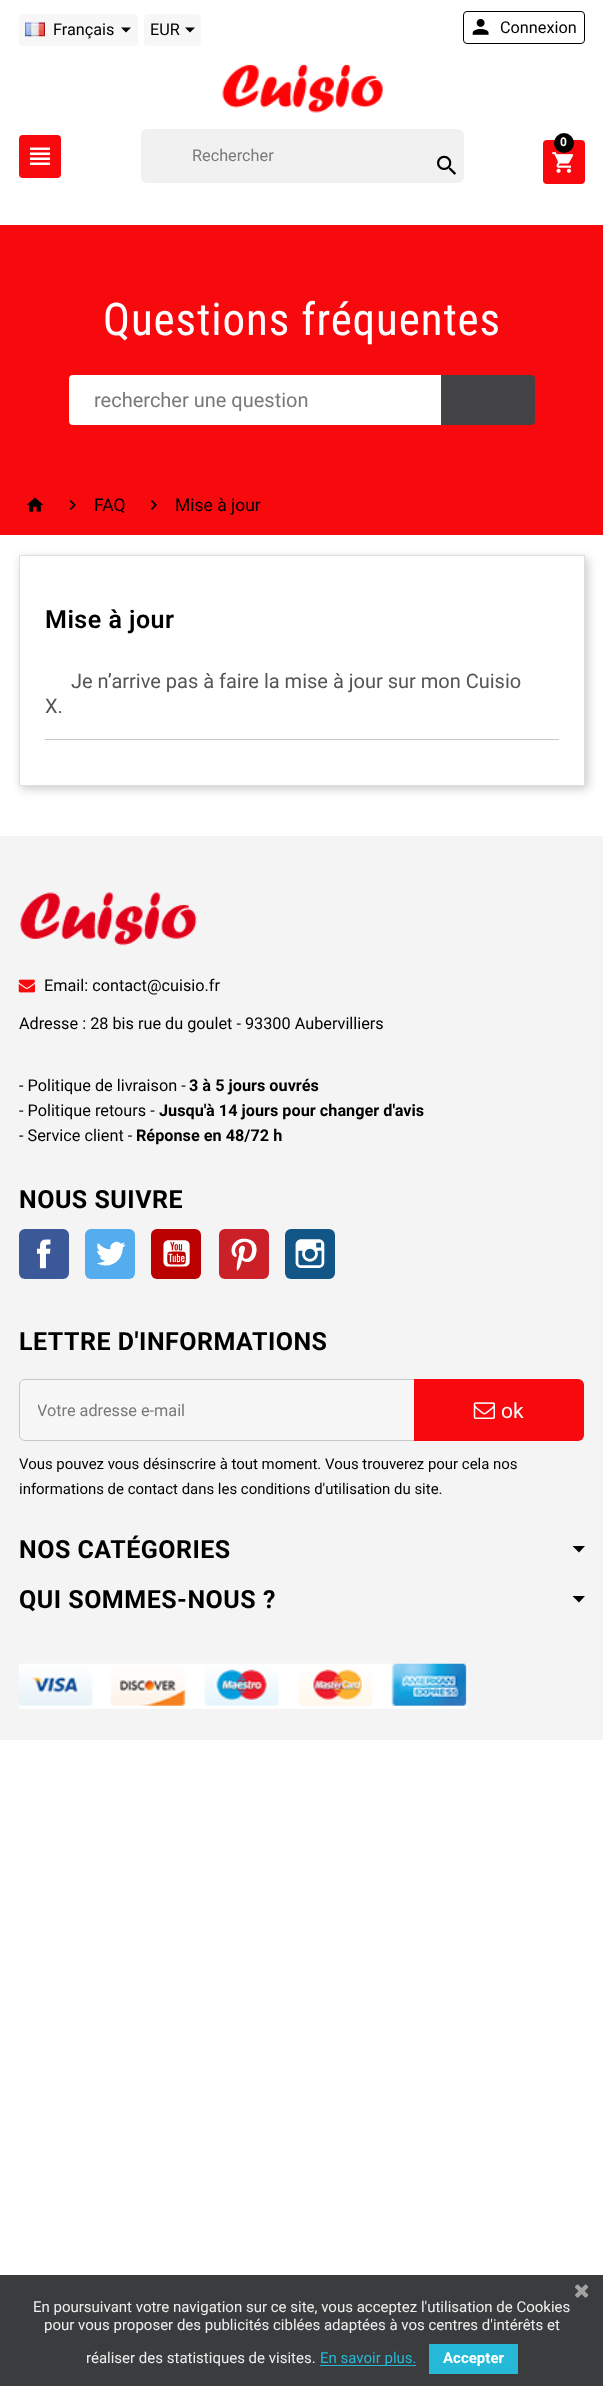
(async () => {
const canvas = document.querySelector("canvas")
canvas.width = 603
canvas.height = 2386
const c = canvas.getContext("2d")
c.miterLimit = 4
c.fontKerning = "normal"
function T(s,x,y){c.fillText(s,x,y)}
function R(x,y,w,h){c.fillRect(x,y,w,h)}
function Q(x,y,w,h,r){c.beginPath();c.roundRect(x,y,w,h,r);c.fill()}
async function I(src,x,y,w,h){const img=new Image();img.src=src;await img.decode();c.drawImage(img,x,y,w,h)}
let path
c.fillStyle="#fff"
R(0,0,603,2386)
c.fillStyle="#f7f7f7"
Q(19,14,119,32,4)
await I("1.png",25,22,20,15)
c.font="16.25px Roboto"
c.fillStyle="#000"
T("Français",53,35)
path = new Path2D("M121 27.5h10l-5 5z")
c.fill(path)
c.fillStyle="#f7f7f7"
Q(144,14,57,32,4)
c.fillStyle="#000"
T("EUR",150,35)
path = new Path2D("M185 27.5h10l-5 5z")
c.fill(path)
c.fillStyle="#f8090e"
Q(19,135,42,43,4)
await I("2.png",30,147,20,18)
c.beginPath()
c.roundRect(463.5,11.5,121,32,3.5)
c.strokeStyle="#000"
c.stroke()
await I("3.png",472,18,17,17)
c.fillStyle="#000"
T("Connexion",500,33)
c.fillStyle="#f8090e"
Q(543,140,42,44,4)
await I("4.png",552,152,22,21)
c.fillStyle="#000"
c.beginPath()
c.arc(564,143,10,0,7)
c.fill()
c.font="bold 12px Roboto"
c.fillStyle="#fff"
T("0",560,146)
c.fillStyle="#f1f1f1"
Q(141,129,323,54,6)
c.font="16.25px Roboto"
c.fillStyle="#797979"
T("Rechercher",192,161)
await I("5.png",437,155,20,20)
await I("6.png",222,64,161,49)
c.fillStyle="#f8090e"
R(0,225,603,310)
c.letterSpacing="0.9px"
c.font="45px Roboto Condensed"
c.fillStyle="#fff"
T("Questions fréquentes",103,335)
c.beginPath()
c.roundRect(69,375,372,50,[4,0,0,4])
c.fill()
c.letterSpacing="0px"
c.font="20px Roboto"
c.fillStyle="#797979"
T("rechercher une question",94,407)
c.fillStyle="#434345"
c.beginPath()
c.roundRect(441,375,94,50,[0,4,4,0])
c.fill()
await I("7.png",26,497,18,15)
await I("8.png",69,500,7,10)
c.font="17.5px Roboto"
c.fillStyle="#000"
T("FAQ",94,511)
await I("9.png",151,500,6,10)
T("Mise à jour",175,511)
c.save()
path = new Path2D("M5 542h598v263h-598zm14 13h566v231h-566z")
c.clip(path,"evenodd")
c.fillStyle="#00000033"
c.filter="blur(5px)"
c.beginPath()
c.rect(21,558,567,231)
c.fill()
c.filter="none"
c.restore()
c.strokeStyle="#dfdfdf"
c.strokeRect(19.5,555.5,565,230)
c.letterSpacing="0.5px"
c.font="600 25px Roboto"
T("Mise à jour",45,628)
c.letterSpacing="0px"
c.font="20px Roboto"
c.fillStyle="#555"
T("Je n’arrive pas à faire la mise à jour sur mon Cuisio",71,688)
T("X.",45,713)
c.fillStyle="#c7c7c7"
R(45,739,514,1)
c.fillStyle="#f4f4f4"
R(0,836,603,904)
await I("10.png",19,892,178,54)
await I("11.png",18,979,17,14)
c.font="16.25px Roboto"
c.fillStyle="#000"
T("Email: contact@cuisio.fr",44,991)
T("Adresse : 28 bis rue du goulet - 93300 Aubervilliers",19,1029)
T("- Politique de livraison -",19,1091)
c.font="bold 16.25px Roboto"
T("3 à 5 jours ouvrés",189,1091)
c.font="16.25px Roboto"
T("- Politique retours -",19,1116)
c.font="bold 16.25px Roboto"
T("Jusqu'à 14 jours pour changer d'avis",159,1116)
c.font="16.25px Roboto"
T("- Service client -",19,1141)
c.font="bold 16.25px Roboto"
T("Réponse en 48/72 h",136,1141)
c.letterSpacing="0.5px"
c.font="bold 25px 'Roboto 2'"
T("NOUS SUIVRE",19,1208)
c.fillStyle="#3b5998"
Q(19,1229,50,50,6)
await I("12.png",36,1239,15,30)
c.fillStyle="#55acee"
Q(85,1229,50,50,6)
await I("13.png",97,1241,29,25)
c.fillStyle="#b00"
Q(151,1229,50,50,6)
await I("14.png",163,1240,27,27)
c.fillStyle="#cb2027"
Q(219,1229,50,50,6)
await I("15.png",231,1238,26,33)
c.fillStyle="#125688"
Q(285,1229,50,50,6)
await I("16.png",295,1239,30,29)
c.fillStyle="#000"
T("LETTRE D'INFORMATIONS",19,1350)
c.fillStyle="#f7f7f7"
c.beginPath()
c.roundRect(19.5,1379.5,395,61,[5.5,0,0,5.5])
c.fill()
c.strokeStyle="#c7c7c7"
c.stroke()
c.save()
c.beginPath()
c.rect(38,1401,360,19)
c.clip()
c.letterSpacing="0px"
c.font="16.25px Roboto"
c.fillStyle="#797979"
T("Votre adresse e-mail",37,1416)
c.restore()
c.fillStyle="#f8090e"
c.beginPath()
c.roundRect(414,1379,170,62,[0,6,6,0])
c.fill()
await I("17.png",473,1402,22,17)
c.letterSpacing="0px"
c.font="21px Roboto"
c.fillStyle="#fff"
T("ok",501,1418)
c.font="14.95px Roboto"
c.fillStyle="#000"
T("Vous pouvez vous désinscrire à tout moment. Vous trouverez pour cela nos",19,1469)
T("informations de contact dans les conditions d'utilisation du site.",19,1494)
c.letterSpacing="0.5px"
c.font="bold 25px 'Roboto 2'"
T("NOS CATÉGORIES",19,1558)
path = new Path2D("M572.5 1546h12.5l-6 6.5z")
c.fill(path)
T("QUI SOMMES-NOUS ?",19,1608)
path = new Path2D("M572.5 1596h12.5l-6 6.5z")
c.fill(path)
await I("18.png",19,1663,449,46)
c.fillStyle="#3a3c3e"
R(0,2275,603,111)
await I("19.png",575,2284,14,14)
c.letterSpacing="0px"
c.font="15px Roboto"
c.fillStyle="#efefef"
T("En poursuivant votre navigation sur ce site, vous acceptez l'utilisation de Cookies",33,2312)
T("pour vous proposer des publicités ciblées adaptées à vos centres d'intérêts et",44,2330)
T("réaliser des statistiques de visites.",86,2363)
c.fillStyle="#25b9d7"
R(320,2365,96,1)
T("En savoir plus.",320,2363)
R(429,2344,89,30)
c.font="bold 15px Roboto"
c.fillStyle="#fff"
T("Accepter",443,2363)
})()
